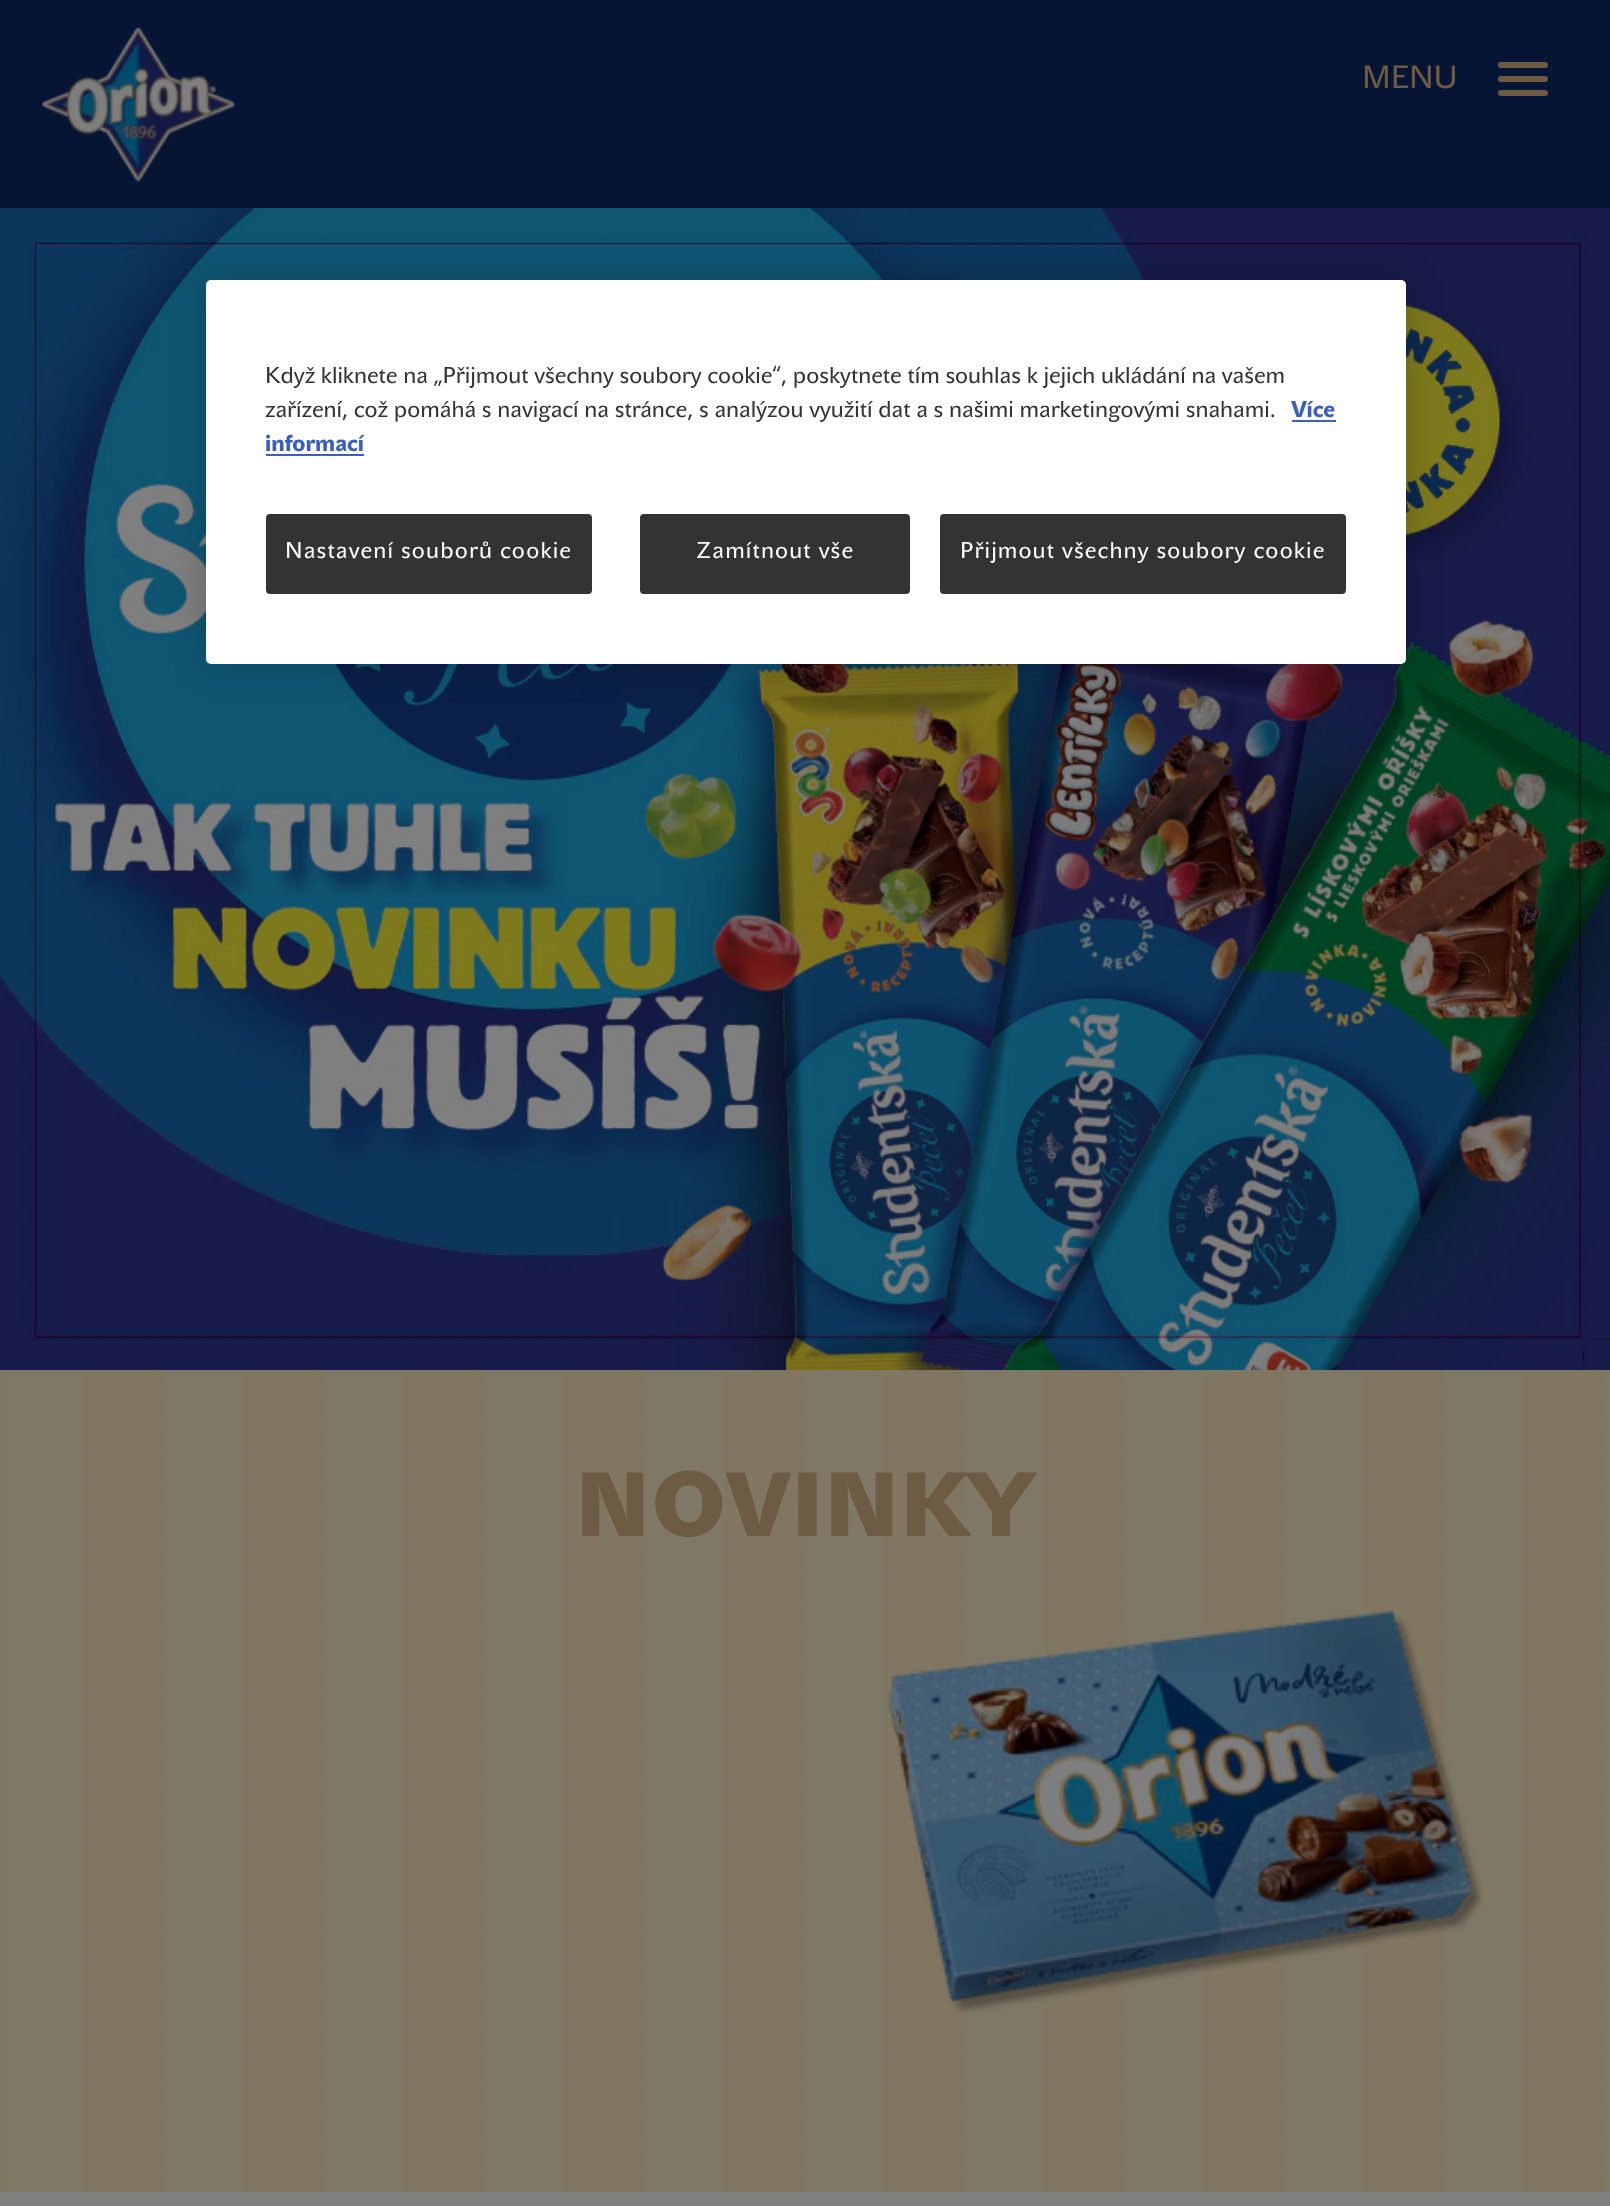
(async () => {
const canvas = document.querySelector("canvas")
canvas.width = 1610
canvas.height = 2206
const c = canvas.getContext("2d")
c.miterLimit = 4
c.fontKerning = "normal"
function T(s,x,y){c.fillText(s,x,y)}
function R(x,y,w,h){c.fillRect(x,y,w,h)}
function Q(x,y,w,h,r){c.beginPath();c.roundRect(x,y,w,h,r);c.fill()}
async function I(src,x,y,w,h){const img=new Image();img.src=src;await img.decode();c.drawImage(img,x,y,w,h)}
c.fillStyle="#808080"
R(0,0,1610,2206)
c.fillStyle="#071534"
R(0,0,1610,208)
await I("1.png",41,26,195,157)
c.font="32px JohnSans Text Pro"
c.fillStyle="#6d5b43"
T("MENU",1362,88)
Q(1498,62,50,6,3)
Q(1498,90,50,6,3)
Q(1498,76,50,6,3)
await I("2.png",0,208,1610,1162)
c.fillStyle="#807762"
R(0,1370,5,822)
await I("3.png",5,1370,1605,822)
c.font="900 90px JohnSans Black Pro"
c.fillStyle="#6d5b43"
T("NOVINKY",575,1536)
await I("4.png",888,1610,595,404)
c.fillStyle="#00000033"
c.filter="blur(18px)"
c.beginPath()
c.roundRect(206,280,1200,384,5)
c.fill()
c.filter="none"
c.fillStyle="#fff"
Q(206,280,1200,384,5)
c.font="22.75px JohnSans Text Pro"
c.fillStyle="#333"
T("Když kliknete na „Přijmout všechny soubory cookie“, poskytnete tím souhlas k jejich ukládání na vašem",265,383)
T("zařízení, což pomáhá s navigací na stránce, s analýzou využití dat a s našimi marketingovými snahami.",265,417)
c.font="900 22.75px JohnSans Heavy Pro"
c.fillStyle="#3860be"
T("Více",1291,417)
R(1292,420,44,2)
T("informací",265,451)
R(266,454,98,2)
c.fillStyle="#333"
Q(266,514,326,80,4)
c.letterSpacing="1.15px"
c.font="22.75px JohnSans Text Pro"
c.fillStyle="#fff"
T("Nastavení souborů cookie",285,558)
c.fillStyle="#333"
Q(640,514,270,80,4)
c.fillStyle="#fff"
T("Zamítnout vše",696,558)
c.fillStyle="#333"
Q(940,514,406,80,4)
c.fillStyle="#fff"
T("Přijmout všechny soubory cookie",960,558)
})()
